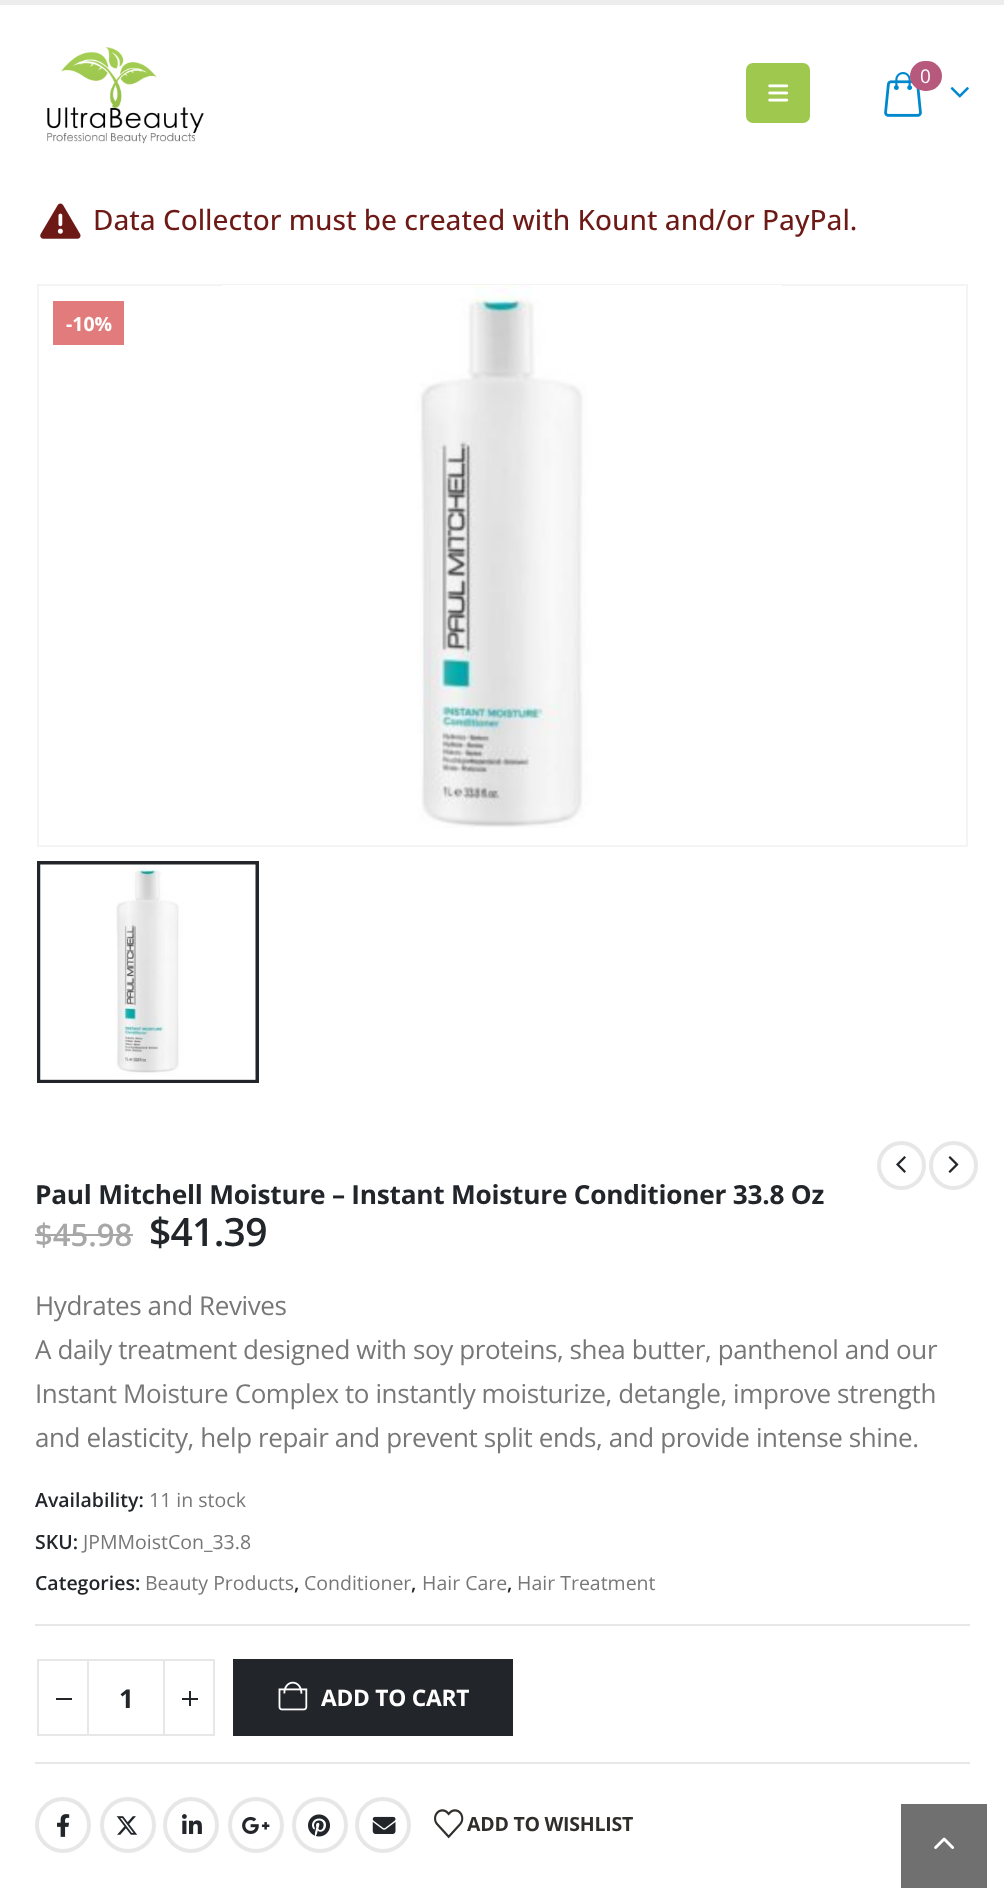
(async () => {
const canvas = document.querySelector("canvas")
canvas.width = 1004
canvas.height = 1888
const c = canvas.getContext("2d")
c.miterLimit = 4
c.fontKerning = "normal"
function T(s,x,y){c.fillText(s,x,y)}
function R(x,y,w,h){c.fillRect(x,y,w,h)}
function Q(x,y,w,h,r){c.beginPath();c.roundRect(x,y,w,h,r);c.fill()}
async function I(src,x,y,w,h){const img=new Image();img.src=src;await img.decode();c.drawImage(img,x,y,w,h)}
c.fillStyle="#fff"
R(0,0,1004,1888)
c.fillStyle="#ededed"
R(0,0,1004,5)
await I("1.png",47,47,157,97)
c.fillStyle="#9ec84e"
Q(746,63,64,60,7)
await I("2.png",768,84,21,18)
await I("3.png",884,72,38,45)
c.fillStyle="#b7597c"
Q(910,61,32,30,15)
c.font="19px Open Sans"
c.fillStyle="#fff"
T("0",920,83)
await I("4.png",950,87,19,11)
await I("5.png",40,203,41,36)
c.font="500 28px Open Sans"
c.fillStyle="#6d1a17"
T("Data Collector must be created with Kount and/or PayPal.",93,230)
c.strokeStyle="#f4f4f4"
c.lineWidth=2
c.strokeRect(38,285,929,561)
await I("6.png",222,285,560,543)
c.strokeStyle="#222529"
c.lineWidth=4
c.strokeRect(39,863,218,218)
await I("7.png",40,864,216,216)
c.fillStyle="#e27c7c"
R(53,301,71,44)
c.font="bold 19.5px Open Sans"
c.fillStyle="#fff"
T("-10%",66,331)
c.beginPath()
c.arc(901.5,1165.5,22.5,0,7)
c.strokeStyle="#e7e7e7"
c.stroke()
await I("8.png",896,1156,10,17)
c.beginPath()
c.arc(953.5,1165.5,22.5,0,7)
c.stroke()
await I("9.png",948,1156,11,17)
c.letterSpacing="-0.25px"
c.font="bold 26.25px Open Sans"
c.fillStyle="#222529"
T("Paul Mitchell Moisture – Instant Moisture Conditioner 33.8 Oz",35,1204)
c.letterSpacing="0px"
c.font="600 31px Open Sans"
c.fillStyle="#a7a7a7"
T("$45.98",35,1246)
R(35,1234,98,2)
c.letterSpacing="-0.75px"
c.font="600 39px Open Sans"
c.fillStyle="#222529"
T("$41.39",149,1246)
c.letterSpacing="-0.4px"
c.font="26px Open Sans"
c.fillStyle="#777"
T("Hydrates and Revives",35,1315)
T("A daily treatment designed with soy proteins, shea butter, panthenol and our",35,1359)
T("Instant Moisture Complex to instantly moisturize, detangle, improve strength",35,1403)
T("and elasticity, help repair and prevent split ends, and provide intense shine.",35,1447)
c.letterSpacing="0px"
c.font="600 19.5px Open Sans"
c.fillStyle="#222529"
T("Availability:",35,1507)
c.font="19.5px Open Sans"
c.fillStyle="#777"
T("11 in stock",149,1507)
c.font="600 19.5px Open Sans"
c.fillStyle="#222529"
T("SKU:",35,1549)
c.font="19.5px Open Sans"
c.fillStyle="#777"
T("JPMMoistCon_33.8",83,1549)
c.font="600 19.5px Open Sans"
c.fillStyle="#222529"
T("Categories:",35,1590)
c.font="19.5px Open Sans"
c.fillStyle="#777"
T("Beauty Products",145,1590)
c.font="600 19.5px Open Sans"
c.fillStyle="#222529"
T(",",294,1590)
c.font="19.5px Open Sans"
c.fillStyle="#777"
T("Conditioner",304,1590)
c.font="600 19.5px Open Sans"
c.fillStyle="#222529"
T(",",411,1590)
c.font="19.5px Open Sans"
c.fillStyle="#777"
T("Hair Care",422,1590)
c.font="600 19.5px Open Sans"
c.fillStyle="#222529"
T(",",507,1590)
c.font="19.5px Open Sans"
c.fillStyle="#777"
T("Hair Treatment",517,1590)
c.fillStyle="#e7e7e7"
R(35,1624,935,2)
R(35,1762,935,2)
R(88,1659,77,2)
R(88,1734,77,2)
c.lineWidth=2
c.strokeRect(38,1660,50,75)
c.fillStyle="#222529"
R(56,1698,16,2)
c.font="bold 26px Open Sans"
T("1",119,1708)
c.strokeRect(164,1660,50,75)
R(182,1698,16,2)
R(189,1691,2,15)
R(233,1659,280,77)
await I("10.png",278,1681,30,30)
c.letterSpacing="-0.25px"
c.font="bold 22.75px Open Sans"
c.fillStyle="#fff"
T("ADD TO CART",321,1706)
c.beginPath()
c.arc(63,1825,26,0,7)
c.lineWidth=4
c.stroke()
await I("11.png",57,1814,13,23)
c.beginPath()
c.arc(128,1825,26,0,7)
c.stroke()
await I("12.png",116,1816,21,19)
c.beginPath()
c.arc(191,1825,26,0,7)
c.stroke()
await I("13.png",182,1814,20,20)
c.beginPath()
c.arc(256,1825,26,0,7)
c.stroke()
await I("14.png",242,1816,28,18)
c.beginPath()
c.arc(320,1825,26,0,7)
c.stroke()
await I("15.png",308,1814,22,23)
c.beginPath()
c.arc(383,1825,26,0,7)
c.stroke()
await I("16.png",372,1816,24,18)
await I("17.png",434,1809,30,30)
c.font="bold 19.5px Open Sans"
c.fillStyle="#302e2a"
T("ADD TO WISHLIST",467,1831)
c.fillStyle="#707070"
R(901,1804,86,84)
await I("18.png",934,1837,21,12)
})()
